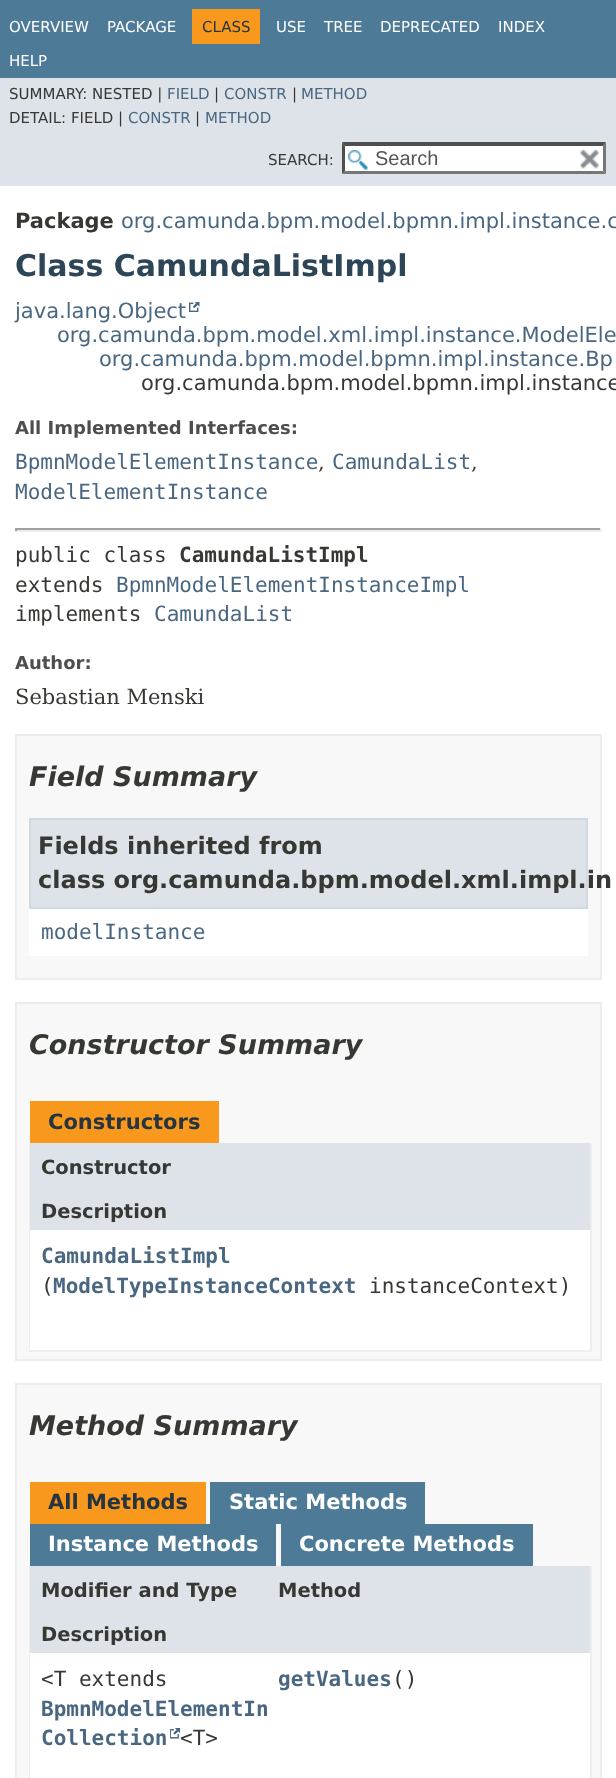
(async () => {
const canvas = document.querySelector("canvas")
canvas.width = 616
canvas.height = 1778
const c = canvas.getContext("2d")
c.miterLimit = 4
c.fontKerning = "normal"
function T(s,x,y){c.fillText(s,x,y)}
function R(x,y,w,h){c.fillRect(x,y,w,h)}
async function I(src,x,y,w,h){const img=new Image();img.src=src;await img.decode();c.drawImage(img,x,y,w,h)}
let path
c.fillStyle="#fff"
R(0,0,616,1778)
c.fillStyle="#4d7a97"
R(0,0,616,78)
c.font="15px DejaVu Sans"
c.fillStyle="#fff"
T("OVERVIEW",9,32)
T("PACKAGE",107,32)
c.fillStyle="#f8981d"
R(192,9,68,35)
c.fillStyle="#253441"
T("CLASS",202,32)
c.fillStyle="#fff"
T("USE",276,32)
T("TREE",324,32)
T("DEPRECATED",380,32)
T("INDEX",498,32)
T("HELP",9,66)
c.fillStyle="#dee3e9"
R(0,78,616,108)
c.fillStyle="#353833"
T("SUMMARY: NESTED |",9,99)
c.fillStyle="#4a6782"
T("FIELD",167,99)
c.fillStyle="#353833"
T("|",214,99)
c.fillStyle="#4a6782"
T("CONSTR",224,99)
c.fillStyle="#353833"
T("|",292,99)
c.fillStyle="#4a6782"
T("METHOD",301,99)
c.fillStyle="#353833"
T("DETAIL: FIELD |",9,123)
c.fillStyle="#4a6782"
T("CONSTR",128,123)
c.fillStyle="#353833"
T("|",195,123)
c.fillStyle="#4a6782"
T("METHOD",205,123)
c.fillStyle="#353833"
T("SEARCH:",268,165)
c.fillStyle="#fff"
R(342,143,264,31)
await I("1.png",348,150,20,20)
c.fillStyle="#4f4f4f"
path = new Path2D("M342 142h264l-3 4h-258z")
c.fill(path)
c.fillStyle="#767676"
path = new Path2D("M606 142.5v31.5l-3-3v-25.5z")
c.fill(path)
path = new Path2D("M606 174h-264l3-3h258z")
c.fill(path)
c.fillStyle="#4f4f4f"
path = new Path2D("M342 174v-31.5l3 3v25.5z")
c.fill(path)
c.font="20px Liberation Sans"
c.fillStyle="#545454"
T("Search",375,165)
await I("2.png",579,149,20,20)
c.font="bold 21px DejaVu Sans"
c.fillStyle="#353833"
T("Package",15,228)
c.font="21px DejaVu Sans"
c.fillStyle="#4a6782"
T("org.camunda.bpm.model.bpmn.impl.instance.c",121,228)
c.font="bold 30px DejaVu Sans"
c.fillStyle="#2c4557"
T("Class CamundaListImpl",15,276)
c.font="21px DejaVu Sans"
c.fillStyle="#4a6782"
T("java.lang.Object",15,318)
await I("3.png",189,302,11,10)
T("org.camunda.bpm.model.xml.impl.instance.ModelEle",57,342)
T("org.camunda.bpm.model.bpmn.impl.instance.Bp",99,366)
c.fillStyle="#353833"
T("org.camunda.bpm.model.bpmn.impl.instance",141,390)
c.font="bold 18px DejaVu Sans"
c.fillStyle="#4e4e4e"
T("All Implemented Interfaces:",15,434)
c.font="21px DejaVu Sans Mono"
c.fillStyle="#4a6782"
T("BpmnModelElementInstance",15,469)
c.font="21px DejaVu Serif"
c.fillStyle="#353833"
T(",",318,469)
c.font="21px DejaVu Sans Mono"
c.fillStyle="#4a6782"
T("CamundaList",332,469)
c.font="21px DejaVu Serif"
c.fillStyle="#353833"
T(",",471,469)
c.font="21px DejaVu Sans Mono"
c.fillStyle="#4a6782"
T("ModelElementInstance",15,499)
c.fillStyle="#9f9f9f"
R(15,528,587,2)
c.fillStyle="#eee"
R(600,528,2,3)
R(15,530,587,2)
c.fillStyle="#9f9f9f"
R(15,528,2,3)
c.fillStyle="#353833"
T("public class",15,562)
c.font="bold 21px DejaVu Sans Mono"
T("CamundaListImpl",179,562)
c.font="21px DejaVu Sans Mono"
T("extends",15,592)
c.fillStyle="#4a6782"
T("BpmnModelElementInstanceImpl",116,592)
c.fillStyle="#353833"
T("implements",15,621)
c.fillStyle="#4a6782"
T("CamundaList",154,621)
c.font="bold 18px DejaVu Sans"
c.fillStyle="#4e4e4e"
T("Author:",15,669)
c.font="21px DejaVu Serif"
c.fillStyle="#353833"
T("Sebastian Menski",15,704)
c.fillStyle="#f8f8f8"
c.beginPath()
c.rect(16,735,585,244)
c.fill()
c.strokeStyle="#ededed"
c.lineWidth=2
c.stroke()
c.font="italic bold 27px DejaVu Sans"
c.fillStyle="#353833"
T("Field Summary",29,786)
c.fillStyle="#fff"
R(29,909,559,47)
c.fillStyle="#dee3e9"
c.beginPath()
c.rect(30,819,557,89)
c.fill()
c.strokeStyle="#d0d9e0"
c.stroke()
c.font="bold 24px DejaVu Sans"
c.fillStyle="#353833"
T("Fields inherited from",38,854)
T("class org.camunda.bpm.model.xml.impl.in",38,888)
c.font="21px DejaVu Sans Mono"
c.fillStyle="#4a6782"
T("modelInstance",41,939)
c.fillStyle="#f8f8f8"
c.beginPath()
c.rect(16,1003,585,357)
c.fill()
c.strokeStyle="#ededed"
c.stroke()
c.font="italic bold 27px DejaVu Sans"
c.fillStyle="#353833"
T("Constructor Summary",29,1054)
c.fillStyle="#f8981d"
R(30,1101,189,42)
c.font="bold 21px DejaVu Sans"
c.fillStyle="#253441"
T("Constructors",48,1129)
c.fillStyle="#eee"
R(590,1143,2,209)
R(29,1350,562,2)
R(29,1143,2,209)
c.fillStyle="#dee3e9"
R(30,1143,560,87)
c.font="bold 19.5px DejaVu Sans"
c.fillStyle="#353833"
T("Constructor",41,1174)
T("Description",41,1218)
c.fillStyle="#fff"
R(30,1230,560,120)
c.font="bold 21px DejaVu Sans Mono"
c.fillStyle="#4a6782"
T("CamundaListImpl",41,1263)
c.font="21px DejaVu Sans Mono"
c.fillStyle="#353833"
T("(",41,1293)
c.font="bold 21px DejaVu Sans Mono"
c.fillStyle="#4a6782"
T("ModelTypeInstanceContext",53,1293)
c.font="21px DejaVu Sans Mono"
c.fillStyle="#353833"
T("instanceContext)",369,1293)
c.fillStyle="#f8f8f8"
c.beginPath()
c.rect(16,1384,585,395)
c.fill()
c.stroke()
c.font="italic bold 27px DejaVu Sans"
c.fillStyle="#353833"
T("Method Summary",29,1435)
c.fillStyle="#f8981d"
R(30,1482,176,42)
c.font="bold 21px DejaVu Sans"
c.fillStyle="#253441"
T("All Methods",48,1509)
c.fillStyle="#4d7a97"
R(210,1482,215,42)
c.fillStyle="#fff"
T("Static Methods",229,1509)
c.fillStyle="#4d7a97"
R(30,1524,246,42)
c.fillStyle="#fff"
T("Instance Methods",48,1551)
c.fillStyle="#4d7a97"
R(281,1524,252,42)
c.fillStyle="#fff"
T("Concrete Methods",299,1551)
c.fillStyle="#eee"
R(590,1566,2,212)
R(29,1566,1,212)
c.fillStyle="#dee3e9"
R(30,1566,560,44)
c.font="bold 19.5px DejaVu Sans"
c.fillStyle="#353833"
T("Modifier and Type",41,1597)
T("Method",278,1597)
c.fillStyle="#dee3e9"
R(30,1610,560,43)
c.fillStyle="#353833"
T("Description",41,1641)
c.fillStyle="#fff"
R(30,1653,560,105)
c.font="21px DejaVu Sans Mono"
c.fillStyle="#353833"
T("<T extends",41,1686)
c.font="bold 21px DejaVu Sans Mono"
c.fillStyle="#4a6782"
T("BpmnModelElementIn",41,1716)
T("Collection",41,1745)
await I("4.png",170,1728,10,11)
c.font="21px DejaVu Sans Mono"
c.fillStyle="#353833"
T("<T>",180,1745)
c.font="bold 21px DejaVu Sans Mono"
c.fillStyle="#4a6782"
T("getValues",278,1686)
c.font="21px DejaVu Sans Mono"
c.fillStyle="#353833"
T("()",392,1686)
c.fillStyle="#fff"
R(30,1758,560,20)
})()
